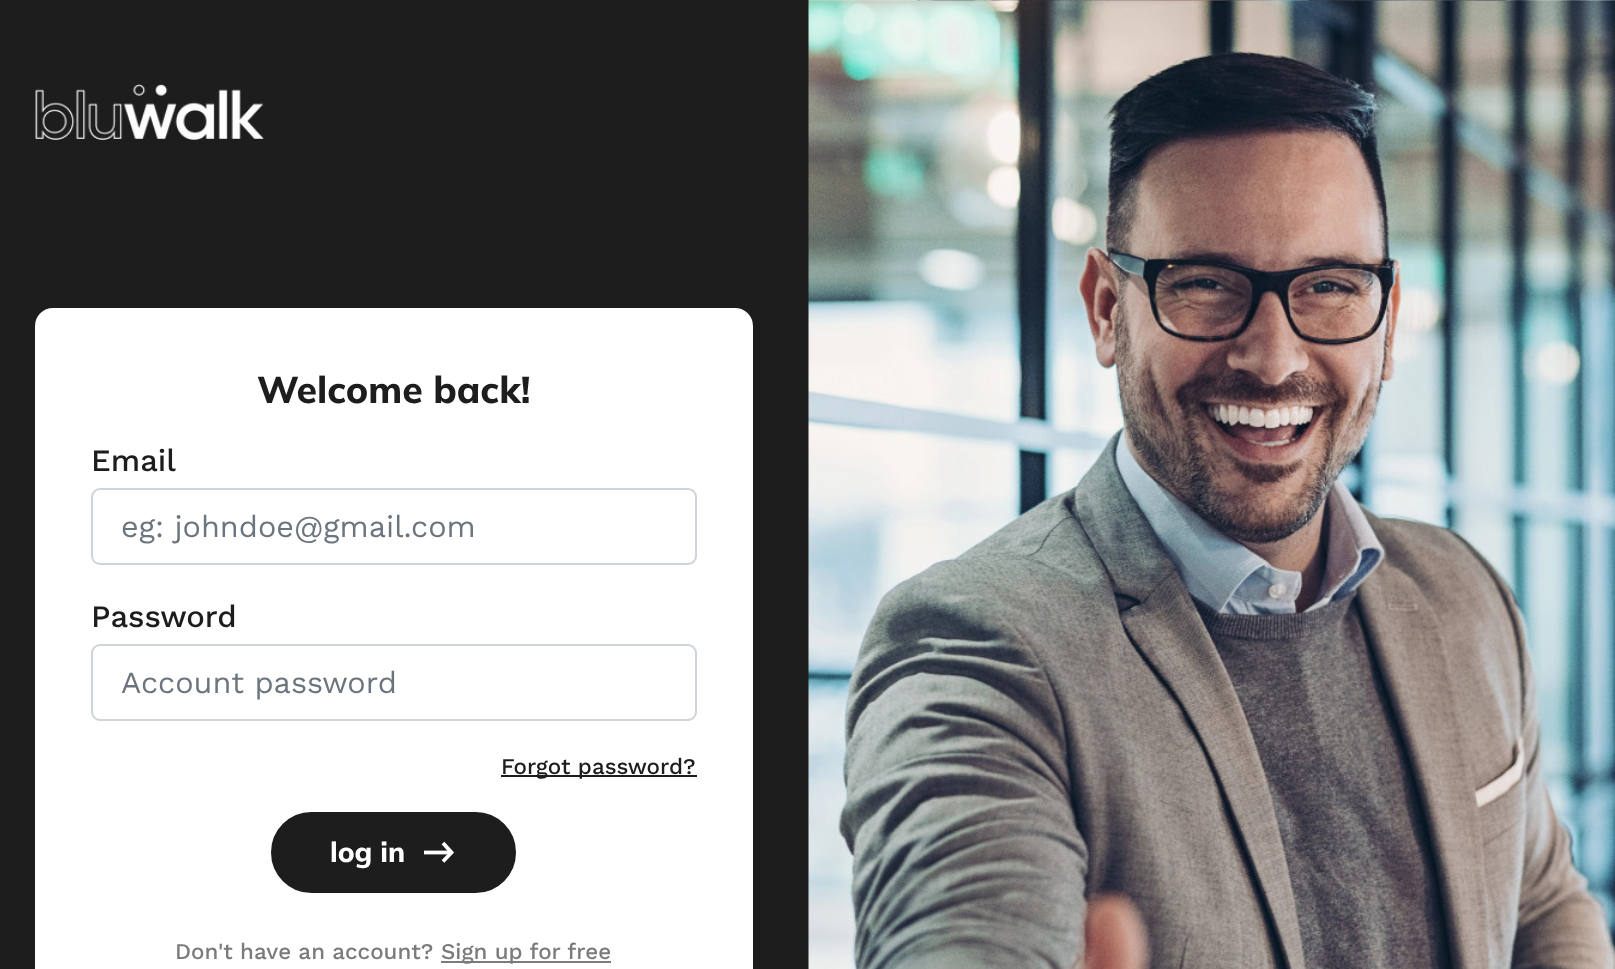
(async () => {
const canvas = document.querySelector("canvas")
canvas.width = 1615
canvas.height = 969
const c = canvas.getContext("2d")
c.miterLimit = 4
c.fontKerning = "normal"
function T(s,x,y){c.fillText(s,x,y)}
function R(x,y,w,h){c.fillRect(x,y,w,h)}
function Q(x,y,w,h,r){c.beginPath();c.roundRect(x,y,w,h,r);c.fill()}
async function I(src,x,y,w,h){const img=new Image();img.src=src;await img.decode();c.drawImage(img,x,y,w,h)}
let path
c.fillStyle="#1d1d1d"
R(0,0,1615,969)
await I("1.png",35,84,229,56)
await I("2.png",808,0,807,969)
c.fillStyle="#fff"
Q(35,308,718,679,18)
c.font="800 37.25px Mulish"
c.fillStyle="#1d1d1d"
T("Welcome back!",257,403)
c.font="500 31px Work Sans"
T("Email",91,471)
c.beginPath()
c.roundRect(92,489,604,75,8)
c.strokeStyle="#ced4da"
c.lineWidth=2
c.stroke()
c.font="30.6px Work Sans"
c.fillStyle="#6c757d"
T("eg: johndoe@gmail.com",121,537)
c.font="500 31px Work Sans"
c.fillStyle="#1d1d1d"
T("Password",91,627)
c.beginPath()
c.roundRect(92,645,604,75,8)
c.stroke()
c.font="30.6px Work Sans"
c.fillStyle="#6c757d"
T("Account password",121,693)
c.fillStyle="#1d1d1d"
R(501,775,196,2)
c.font="500 22.4px Work Sans"
T("Forgot password?",501,774)
c.beginPath()
c.roundRect(273,814,241,77,38.5)
c.fill()
c.strokeStyle="#1d1d1d"
c.lineWidth=4
c.stroke()
c.font="800 28px Mulish"
c.fillStyle="#fff"
T("log in",330,862)
path = new Path2D("M443 843l8.5 9.5l-8.5 9")
c.strokeStyle="#fff"
c.lineWidth=3.8
c.stroke(path)
path = new Path2D("M424 852.5h27.5")
c.lineJoin="round"
c.stroke(path)
c.font="500 22.4px Work Sans"
c.fillStyle="#7b7b7b"
T("Don't have an account?",175,959)
R(441,961,170,2)
T("Sign up for free",441,959)
})()
